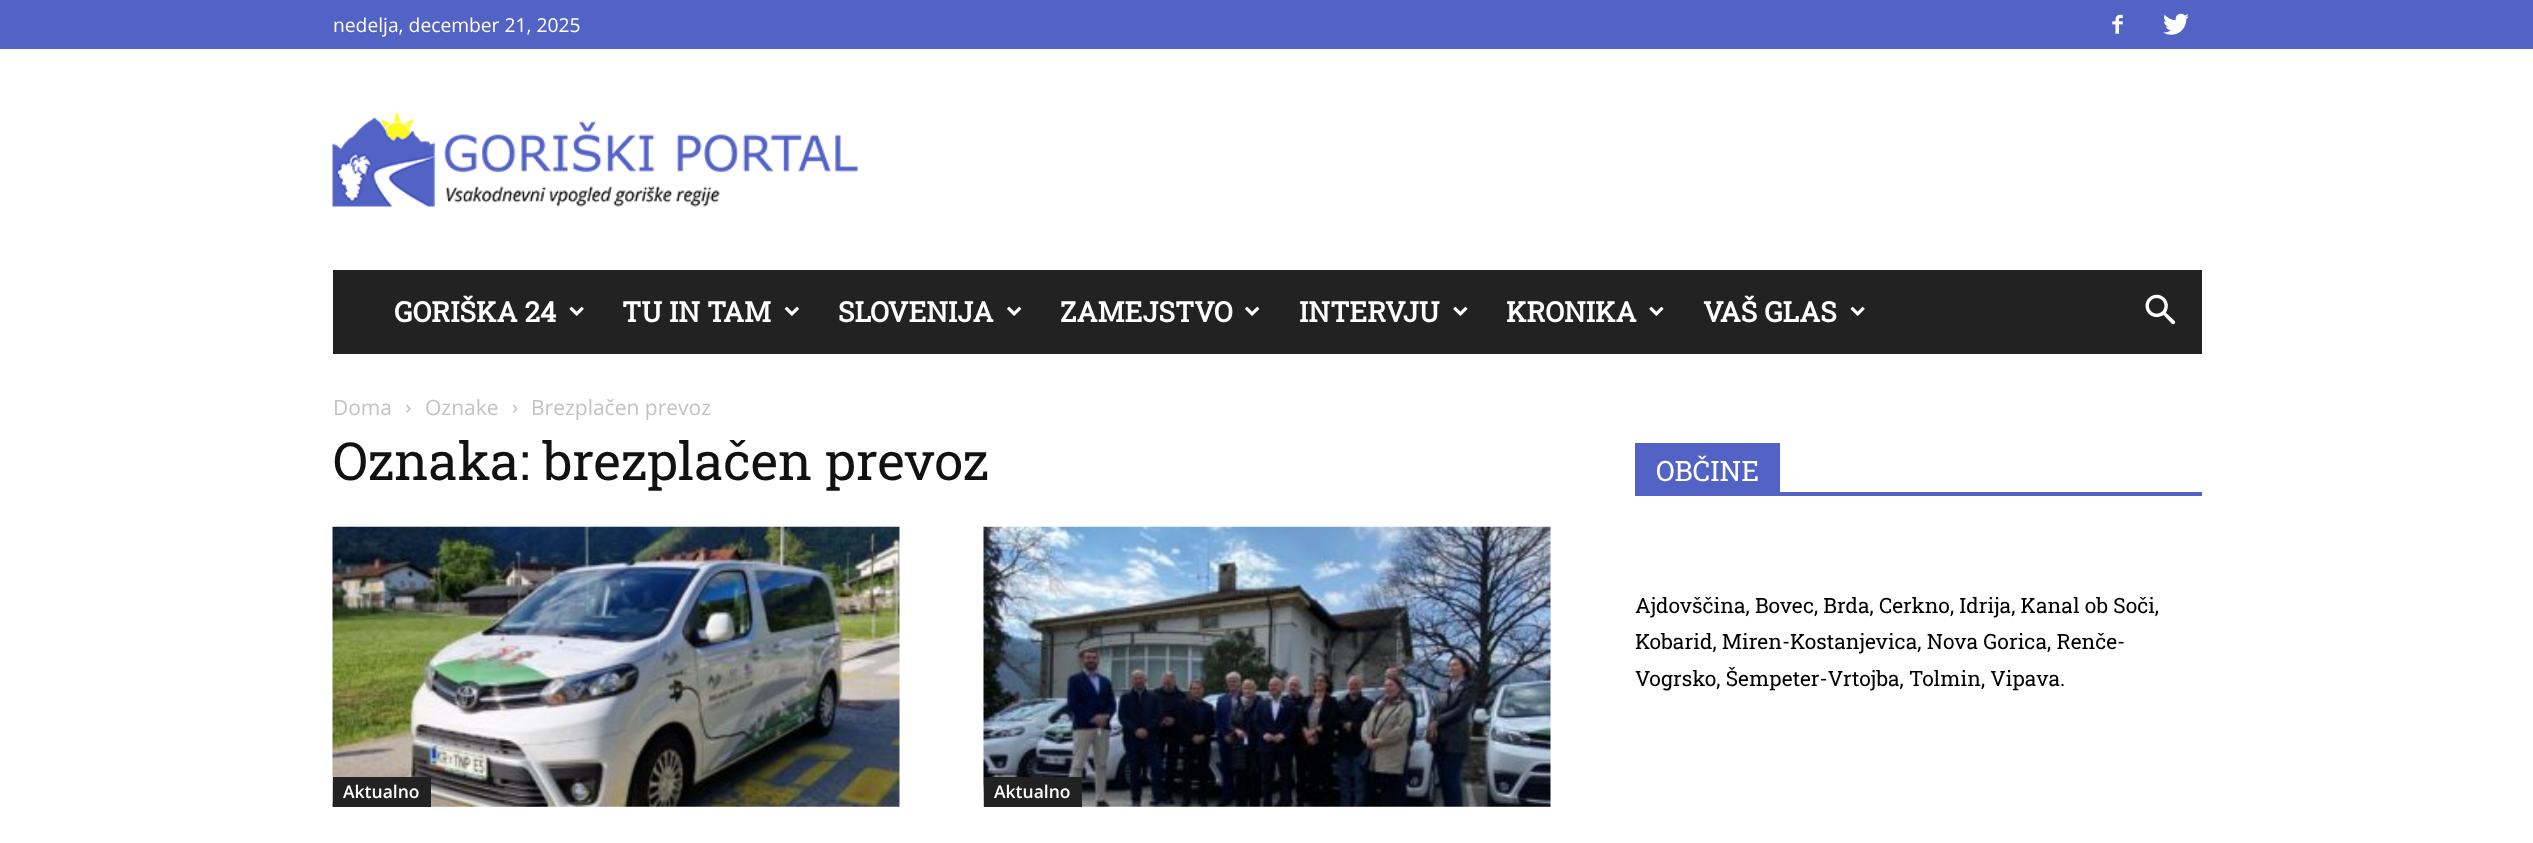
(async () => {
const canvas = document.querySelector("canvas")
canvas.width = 2533
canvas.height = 843
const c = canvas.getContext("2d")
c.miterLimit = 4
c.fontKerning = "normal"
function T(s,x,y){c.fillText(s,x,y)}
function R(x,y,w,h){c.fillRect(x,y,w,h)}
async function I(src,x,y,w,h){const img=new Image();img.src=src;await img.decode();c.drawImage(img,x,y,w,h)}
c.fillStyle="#fff"
R(0,0,2533,843)
c.fillStyle="#5262c5"
R(0,0,2533,49)
c.font="19.25px Open Sans"
c.fillStyle="#fff"
T("nedelja, december 21, 2025",333,32)
await I("1.png",2112,14,11,20)
await I("2.png",2163,13,26,22)
await I("3.png",332,112,526,95)
c.fillStyle="#222"
R(333,270,1869,84)
c.font="bold 28px Roboto Slab"
c.fillStyle="#fff"
T("GORIŠKA 24",394,322)
await I("4.png",569,306,15,10)
T("TU IN TAM",622,322)
await I("5.png",784,306,15,10)
T("SLOVENIJA",838,322)
await I("6.png",1007,306,15,10)
T("ZAMEJSTVO",1060,322)
await I("6.png",1245,306,15,10)
T("INTERVJU",1299,322)
await I("7.png",1453,306,15,10)
T("KRONIKA",1506,322)
await I("7.png",1649,306,15,10)
T("VAŠ GLAS",1703,322)
await I("4.png",1850,306,15,10)
await I("8.png",2145,294,31,31)
c.font="21px Open Sans"
c.fillStyle="#c3c3c3"
T("Doma",333,415)
await I("9.png",406,404,5,9)
T("Oznake",425,415)
await I("10.png",512,404,6,9)
T("Brezplačen prevoz",531,415)
c.font="52.5px Roboto Slab"
c.fillStyle="#111"
T("Oznaka: brezplačen prevoz",333,480)
await I("11.png",332,526,568,281)
c.fillStyle="#222"
R(333,777,98,30)
c.font="600 17.5px Open Sans"
c.fillStyle="#fff"
T("Aktualno",343,798)
await I("12.png",983,526,568,281)
c.fillStyle="#222"
R(984,777,98,30)
c.fillStyle="#fff"
T("Aktualno",994,798)
c.fillStyle="#5262c5"
R(1635,492,567,4)
R(1635,443,145,49)
c.font="28px Roboto Slab"
c.fillStyle="#fff"
T("OBČINE",1656,481)
c.font="21px Roboto Slab"
c.fillStyle="#000"
T("Ajdovščina, Bovec, Brda, Cerkno, Idrija, Kanal ob Soči,",1635,613)
T("Kobarid, Miren-Kostanjevica, Nova Gorica, Renče-",1635,649)
T("Vogrsko, Šempeter-Vrtojba, Tolmin, Vipava.",1635,686)
})()
